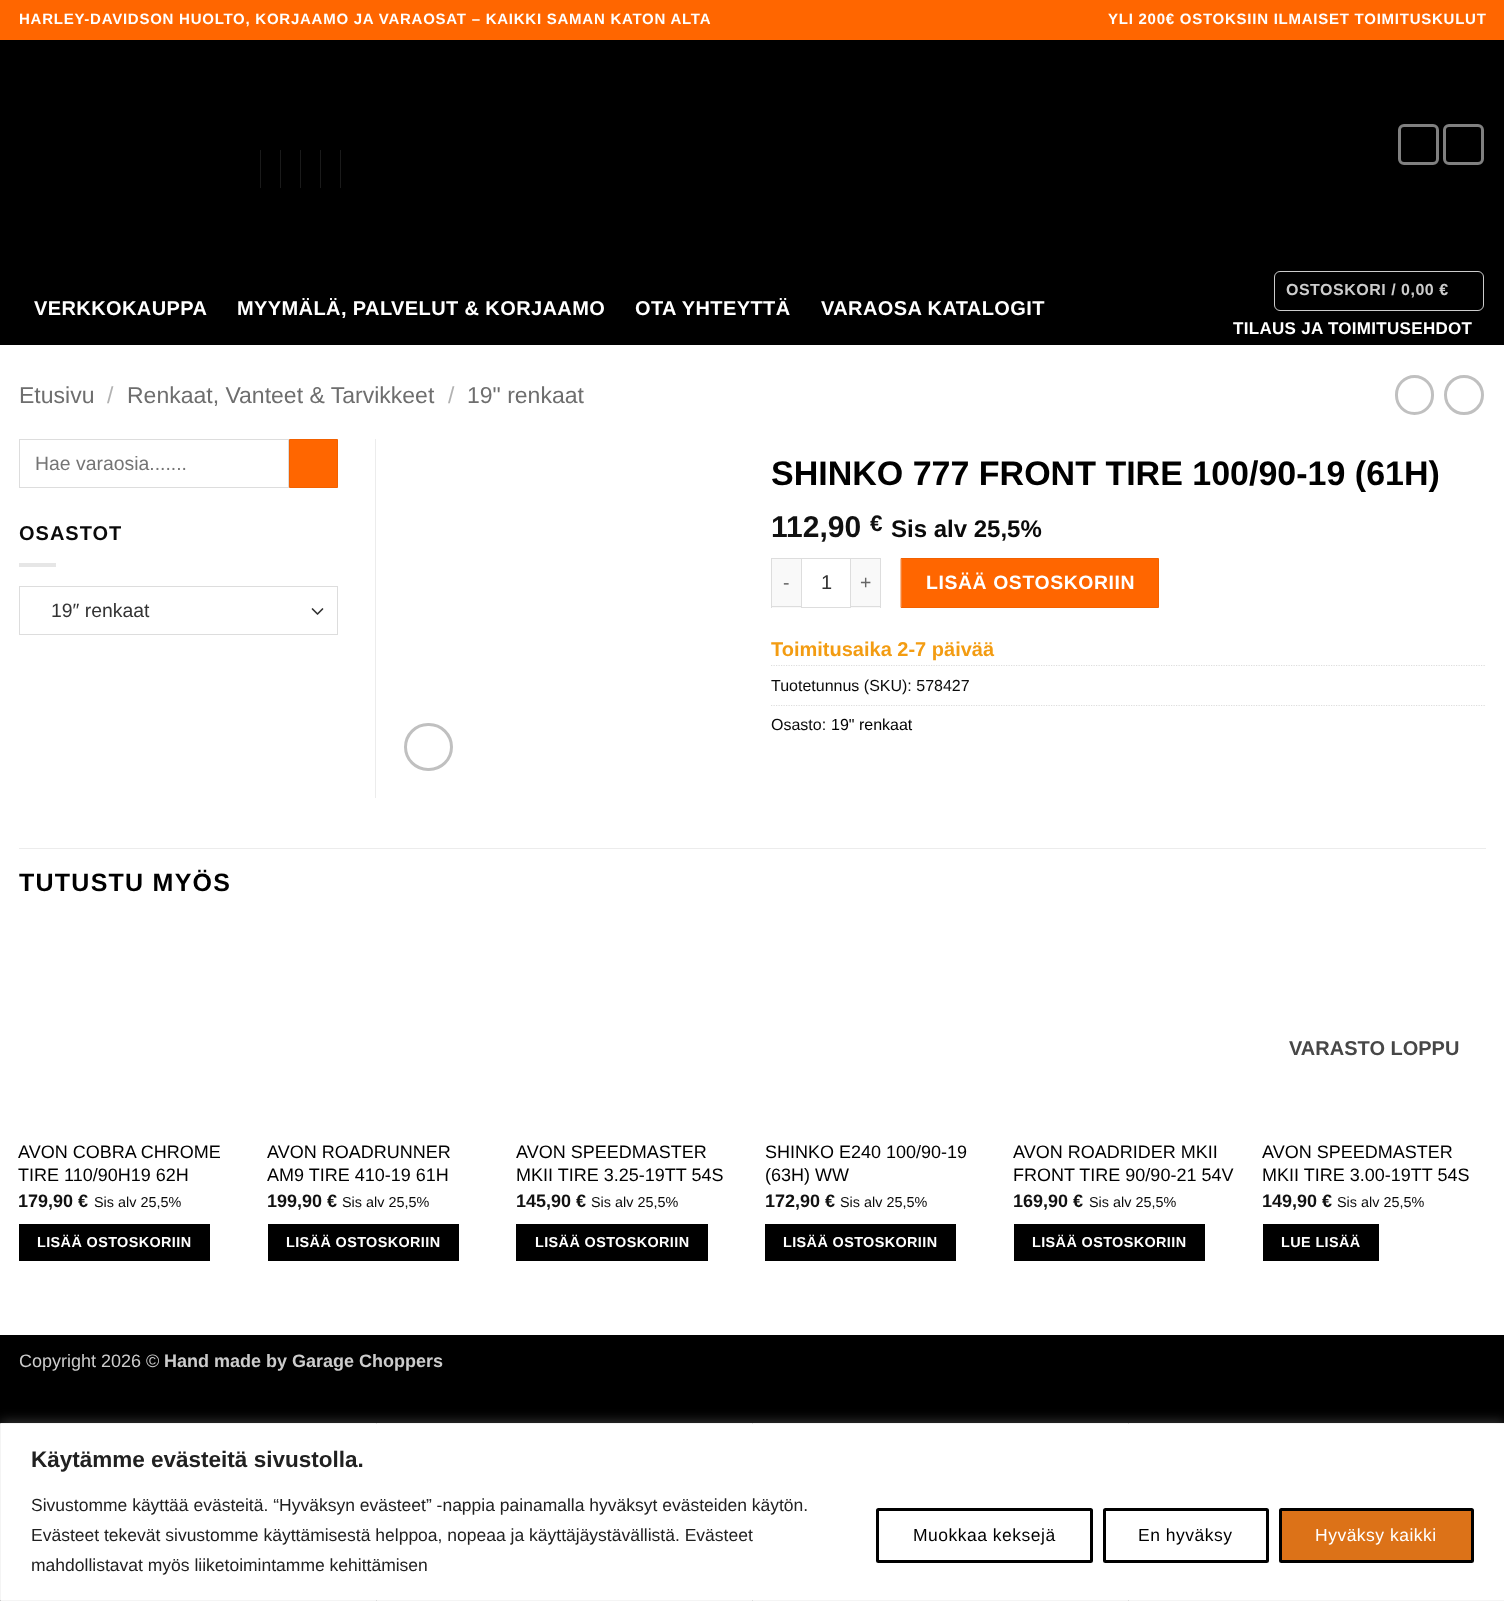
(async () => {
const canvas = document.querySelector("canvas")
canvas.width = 1504
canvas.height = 1601
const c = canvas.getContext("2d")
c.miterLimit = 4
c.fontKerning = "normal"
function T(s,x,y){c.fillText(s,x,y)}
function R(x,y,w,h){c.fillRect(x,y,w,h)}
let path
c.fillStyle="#000"
R(0,0,1504,1601)
c.fillStyle="#fff"
R(0,345,1504,990)
c.fillStyle="#f60"
R(0,0,1504,40)
c.letterSpacing="0.75px"
c.font="bold 15px Liberation Sans"
c.fillStyle="#fff"
T("HARLEY-DAVIDSON HUOLTO, KORJAAMO JA VARAOSAT – KAIKKI SAMAN KATON ALTA",19,24)
T("YLI 200€ OSTOKSIIN ILMAISET TOIMITUSKULUT",1108,24)
c.beginPath()
c.roundRect(1399.5,125.5,38,38,4.5)
c.strokeStyle="#808080"
c.lineWidth=3
c.stroke()
c.beginPath()
c.roundRect(1444.5,125.5,38,38,4.5)
c.stroke()
c.fillStyle="#1a1a1a"
R(260,150,1,38)
R(280,150,1,38)
R(300,150,1,38)
R(320,150,1,38)
R(340,150,1,38)
c.letterSpacing="0.4px"
c.font="bold 20px Liberation Sans"
c.fillStyle="#fff"
T("VERKKOKAUPPA",34,315)
T("MYYMÄLÄ, PALVELUT & KORJAAMO",237,315)
T("OTA YHTEYTTÄ",635,315)
T("VARAOSA KATALOGIT",821,315)
c.beginPath()
c.roundRect(1274.5,271.5,209,39,5.5)
c.strokeStyle="#ccc"
c.lineWidth=1
c.stroke()
c.letterSpacing="0.5px"
c.font="bold 16px Liberation Sans"
c.fillStyle="#ccc"
T("OSTOSKORI / 0,00 €",1286,295)
c.letterSpacing="0.3px"
c.font="bold 17px Liberation Sans"
c.fillStyle="#fff"
T("TILAUS JA TOIMITUSEHDOT",1233,334)
c.letterSpacing="0px"
c.font="23px Liberation Sans"
c.fillStyle="#6e6e6e"
T("Etusivu",19,403)
c.fillStyle="#b2b2b2"
T("/",107,403)
c.fillStyle="#6e6e6e"
T("Renkaat, Vanteet & Tarvikkeet",127,403)
c.fillStyle="#b2b2b2"
T("/",448,403)
c.fillStyle="#6e6e6e"
T("19\" renkaat",467,403)
c.beginPath()
c.roundRect(1396.5,376.5,36,37,18)
c.strokeStyle="#c0c0c0"
c.lineWidth=3
c.stroke()
c.beginPath()
c.arc(1464,395,18.5,0,7)
c.stroke()
c.fillStyle="#ececec"
R(375,439,1,359)
c.strokeStyle="#ddd"
c.lineWidth=1
c.strokeRect(19.5,439.5,269,48)
c.font="19.4px Liberation Sans"
c.fillStyle="#757575"
T("Hae varaosia.......",35,470)
c.fillStyle="#f60"
c.beginPath()
c.rect(289.5,439.5,48,48)
c.fill()
c.strokeStyle="#f26100"
c.stroke()
c.letterSpacing="1px"
c.font="bold 20px Liberation Sans"
c.fillStyle="#0a0a0a"
T("OSASTOT",19,540)
c.fillStyle="#e6e6e6"
R(19,563,37,4)
path = new Path2D("M312.5 609l5 5l5-5")
c.strokeStyle="#333"
c.lineWidth=1.7
c.lineCap="round"
c.lineJoin="round"
c.stroke(path)
c.strokeStyle="#ddd"
c.lineWidth=1
c.lineJoin="miter"
c.strokeRect(19.5,586.5,318,48)
c.letterSpacing="0px"
c.font="19.4px Liberation Sans"
c.fillStyle="#333"
T("19″ renkaat",51,617)
c.font="bold 34px Liberation Sans"
c.fillStyle="#000"
T("SHINKO 777 FRONT TIRE 100/90-19 (61H)",771,485)
c.font="bold 30px Liberation Sans"
c.fillStyle="#111"
T("112,90",771,537)
c.font="bold 22.5px Liberation Sans"
T("€",870,531)
c.font="bold 24px Liberation Sans"
c.fillStyle="#0a0a0a"
T("Sis alv 25,5%",891,537)
c.fillStyle="#f9f9f9"
R(772,559,29,49)
c.fillStyle="#ddd"
R(771,558,30,1)
R(771,606,30,1)
R(771,558,1,50)
c.letterSpacing="0.6px"
c.font="19.4px Liberation Sans"
c.fillStyle="#666"
T("-",783,589)
c.strokeRect(801.5,558.5,49,49)
c.letterSpacing="0px"
c.font="20px Liberation Sans"
c.fillStyle="#333"
T("1",821,589)
c.fillStyle="#f9f9f9"
R(851,559,29,49)
c.fillStyle="#ddd"
R(851,558,30,1)
R(880,558,1,50)
R(851,606,30,1)
c.letterSpacing="0.6px"
c.font="19.4px Liberation Sans"
c.fillStyle="#666"
T("+",860,589)
c.fillStyle="#f60"
c.beginPath()
c.rect(901.5,558.5,257,49)
c.fill()
c.strokeStyle="#f26100"
c.stroke()
c.font="bold 19.4px Liberation Sans"
c.fillStyle="#fff"
T("LISÄÄ OSTOSKORIIN",926,589)
c.letterSpacing="0px"
c.font="bold 20px Liberation Sans"
c.fillStyle="#f39c12"
T("Toimitusaika 2-7 päivää",771,656)
path = new Path2D("M771 665.5h715")
c.strokeStyle="#ddd"
c.lineWidth=1.2
c.lineCap="butt"
c.setLineDash([1.25,1.25])
c.stroke(path)
c.font="16px Liberation Sans"
c.fillStyle="#0a0a0a"
T("Tuotetunnus (SKU): 578427",771,691)
path = new Path2D("M771 705.5h715")
c.stroke(path)
T("Osasto:",771,730)
c.fillStyle="#000"
T("19\" renkaat",831,730)
c.beginPath()
c.roundRect(405.5,724.5,46,45,22.5)
c.strokeStyle="#c0c0c0"
c.lineWidth=3
c.setLineDash([])
c.stroke()
c.fillStyle="#ececec"
R(19,848,1467,1)
c.letterSpacing="1.25px"
c.font="bold 25px Liberation Sans"
c.fillStyle="#000"
T("TUTUSTU MYÖS",19,891)
c.letterSpacing="0px"
c.font="18px Liberation Sans"
T("AVON COBRA CHROME",18,1158)
T("TIRE 110/90H19 62H",18,1181)
c.font="bold 18px Liberation Sans"
c.fillStyle="#111"
T("179,90 €",18,1207)
c.font="14.4px Liberation Sans"
c.fillStyle="#0a0a0a"
T("Sis alv 25,5%",94,1207)
c.fillStyle="#000"
R(19,1224,191,37)
c.letterSpacing="0.4px"
c.font="bold 14.4px Liberation Sans"
c.fillStyle="#fff"
T("LISÄÄ OSTOSKORIIN",37,1247)
c.letterSpacing="0px"
c.font="18px Liberation Sans"
c.fillStyle="#000"
T("AVON ROADRUNNER",267,1158)
T("AM9 TIRE 410-19 61H",267,1181)
c.font="bold 18px Liberation Sans"
c.fillStyle="#111"
T("199,90 €",267,1207)
c.font="14.4px Liberation Sans"
c.fillStyle="#0a0a0a"
T("Sis alv 25,5%",342,1207)
c.fillStyle="#000"
R(268,1224,191,37)
c.letterSpacing="0.4px"
c.font="bold 14.4px Liberation Sans"
c.fillStyle="#fff"
T("LISÄÄ OSTOSKORIIN",286,1247)
c.letterSpacing="0px"
c.font="18px Liberation Sans"
c.fillStyle="#000"
T("AVON SPEEDMASTER",516,1158)
T("MKII TIRE 3.25-19TT 54S",516,1181)
c.font="bold 18px Liberation Sans"
c.fillStyle="#111"
T("145,90 €",516,1207)
c.font="14.4px Liberation Sans"
c.fillStyle="#0a0a0a"
T("Sis alv 25,5%",591,1207)
c.fillStyle="#000"
R(516,1224,192,37)
c.letterSpacing="0.4px"
c.font="bold 14.4px Liberation Sans"
c.fillStyle="#fff"
T("LISÄÄ OSTOSKORIIN",535,1247)
c.letterSpacing="0px"
c.font="18px Liberation Sans"
c.fillStyle="#000"
T("SHINKO E240 100/90-19",765,1158)
T("(63H) WW",765,1181)
c.font="bold 18px Liberation Sans"
c.fillStyle="#111"
T("172,90 €",765,1207)
c.font="14.4px Liberation Sans"
c.fillStyle="#0a0a0a"
T("Sis alv 25,5%",840,1207)
c.fillStyle="#000"
R(765,1224,191,37)
c.letterSpacing="0.4px"
c.font="bold 14.4px Liberation Sans"
c.fillStyle="#fff"
T("LISÄÄ OSTOSKORIIN",783,1247)
c.letterSpacing="0px"
c.font="18px Liberation Sans"
c.fillStyle="#000"
T("AVON ROADRIDER MKII",1013,1158)
T("FRONT TIRE 90/90-21 54V",1013,1181)
c.font="bold 18px Liberation Sans"
c.fillStyle="#111"
T("169,90 €",1013,1207)
c.font="14.4px Liberation Sans"
c.fillStyle="#0a0a0a"
T("Sis alv 25,5%",1089,1207)
c.fillStyle="#000"
R(1014,1224,191,37)
c.letterSpacing="0.4px"
c.font="bold 14.4px Liberation Sans"
c.fillStyle="#fff"
T("LISÄÄ OSTOSKORIIN",1032,1247)
c.letterSpacing="0px"
c.font="bold 20px Liberation Sans"
c.fillStyle="#474747"
T("VARASTO LOPPU",1289,1055)
c.font="18px Liberation Sans"
c.fillStyle="#000"
T("AVON SPEEDMASTER",1262,1158)
T("MKII TIRE 3.00-19TT 54S",1262,1181)
c.font="bold 18px Liberation Sans"
c.fillStyle="#111"
T("149,90 €",1262,1207)
c.font="14.4px Liberation Sans"
c.fillStyle="#0a0a0a"
T("Sis alv 25,5%",1337,1207)
c.fillStyle="#000"
R(1263,1224,116,37)
c.letterSpacing="0.4px"
c.font="bold 14.4px Liberation Sans"
c.fillStyle="#fff"
T("LUE LISÄÄ",1281,1247)
c.letterSpacing="0px"
c.font="18px Liberation Sans"
c.fillStyle="#ccc"
T("Copyright 2026 ©",19,1367)
c.font="bold 18px Liberation Sans"
T("Hand made by Garage Choppers",164,1367)
c.fillStyle="#acabab4d"
c.filter="blur(6px)"
c.beginPath()
c.rect(0,1421,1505,179)
c.fill()
c.filter="none"
c.fillStyle="#fff"
c.beginPath()
c.rect(.5,1423.5,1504,177)
c.fill()
c.strokeStyle="#f4f4f4"
c.lineWidth=1
c.stroke()
c.font="bold 22.5px Liberation Sans"
c.fillStyle="#212121"
T("Käytämme evästeitä sivustolla.",31,1467)
c.font="17.5px Liberation Sans"
T("Sivustomme käyttää evästeitä. “Hyväksyn evästeet” -nappia painamalla hyväksyt evästeiden käytön.",31,1511)
T("Evästeet tekevät sivustomme käyttämisestä helppoa, nopeaa ja käyttäjäystävällistä. Evästeet",31,1541)
T("mahdollistavat myös liiketoimintamme kehittämisen",31,1571)
c.beginPath()
c.roundRect(877.5,1509.5,214,52,1)
c.strokeStyle="#000"
c.lineWidth=3
c.stroke()
c.letterSpacing="0.5px"
c.fillStyle="#000"
T("Muokkaa keksejä",913,1541)
c.beginPath()
c.roundRect(1104.5,1509.5,163,52,1)
c.stroke()
T("En hyväksy",1138,1541)
c.fillStyle="#dc7218"
c.beginPath()
c.roundRect(1280.5,1509.5,192,52,1)
c.fill()
c.stroke()
c.fillStyle="#fff"
T("Hyväksy kaikki",1315,1541)
})()
